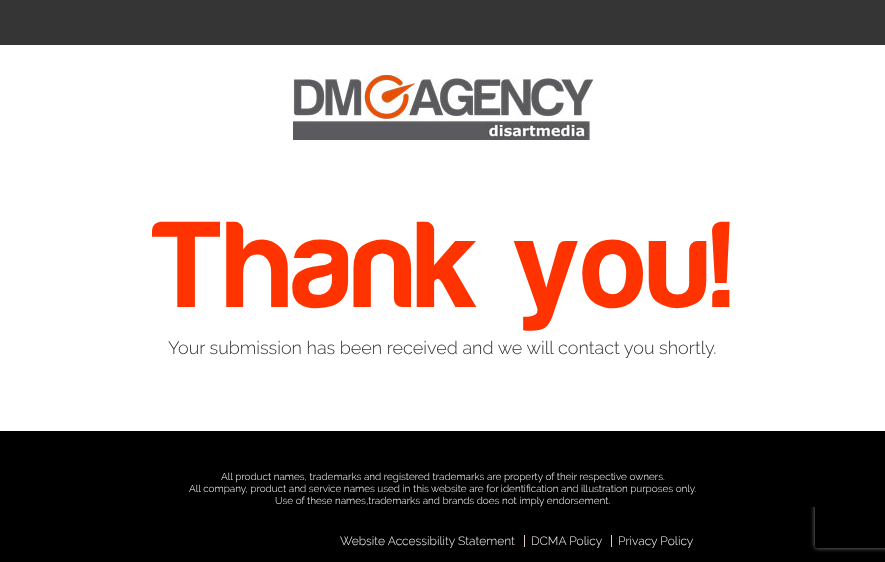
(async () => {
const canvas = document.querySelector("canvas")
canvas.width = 885
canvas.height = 562
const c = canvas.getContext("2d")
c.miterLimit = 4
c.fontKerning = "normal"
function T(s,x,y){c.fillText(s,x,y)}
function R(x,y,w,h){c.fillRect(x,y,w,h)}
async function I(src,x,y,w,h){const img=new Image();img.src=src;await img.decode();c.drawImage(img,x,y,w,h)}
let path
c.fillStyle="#fff"
R(0,0,885,562)
c.fillStyle="#353535"
R(0,0,885,45)
await I("1.png",293,75,300,65)
c.fillStyle="#000"
R(0,507,885,55)
c.save()
path = new Path2D("M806 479h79v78h-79zm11 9h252c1 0 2 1 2 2v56c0 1-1 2-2 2h-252c-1 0-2-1-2-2v-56c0-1 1-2 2-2z")
c.clip(path,"evenodd")
c.fillStyle="#808080"
c.filter="blur(2.5px)"
c.beginPath()
c.roundRect(815,488,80,60,2)
c.fill()
c.filter="none"
c.restore()
R(0,431,885,76)
c.letterSpacing="3px"
c.font="bold 127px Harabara"
c.fillStyle="#f30"
T("Thank you!",152,307)
c.letterSpacing="0px"
c.font="300 18px Raleway"
c.fillStyle="#333"
T("Your submission has been received and we will contact you shortly.",168,354)
c.font="300 10px Raleway"
c.fillStyle="#fff"
T("All product names, trademarks and registered trademarks are property of their respective owners.",221,480)
T("All company, product and service names used in this website are for identification and illustration purposes only.",189,492)
T("Use of these names,trademarks and brands does not imply endorsement.",275,504)
c.font="300 12px Raleway"
c.fillStyle="#f9f0f0"
T("Website Accessibility Statement",340,545)
c.fillStyle="#e3c6c6"
R(524,535,1,12)
c.fillStyle="#f9f0f0"
T("DCMA Policy",531,545)
c.fillStyle="#e3c6c6"
R(611,535,1,12)
c.fillStyle="#f9f0f0"
T("Privacy Policy",618,545)
})()
